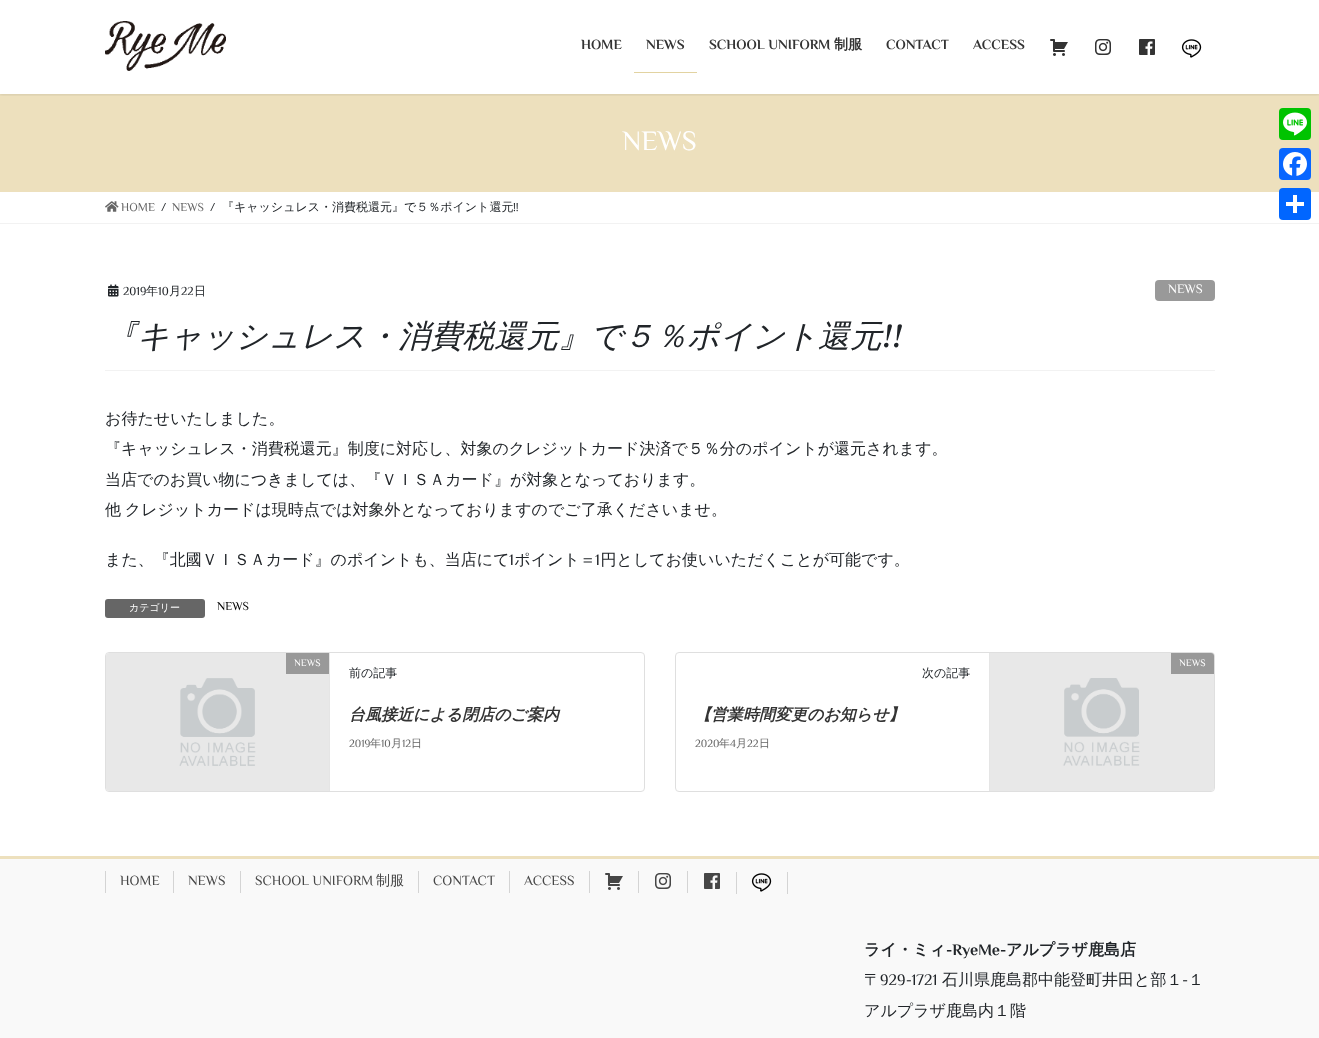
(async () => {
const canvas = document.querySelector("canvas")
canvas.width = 1319
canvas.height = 1038
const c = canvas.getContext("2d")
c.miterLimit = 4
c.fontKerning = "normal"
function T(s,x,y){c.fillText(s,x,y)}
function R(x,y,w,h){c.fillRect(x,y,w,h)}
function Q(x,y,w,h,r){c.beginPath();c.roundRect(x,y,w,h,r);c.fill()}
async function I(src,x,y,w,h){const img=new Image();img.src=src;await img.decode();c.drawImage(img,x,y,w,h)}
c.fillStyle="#fff"
R(0,0,1319,1038)
c.fillStyle="#ede0bd"
R(0,94,1319,98)
c.save()
c.beginPath()
c.rect(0,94,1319,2)
c.clip()
c.fillStyle="#0000001a"
c.filter="blur(1.5px)"
c.beginPath()
c.rect(0,1,1319,94)
c.fill()
c.filter="none"
c.restore()
await I("1.png",105,21,121,50)
c.font="bold 14px El Messiri"
c.fillStyle="#333"
T("HOME",581,49)
T("NEWS",646,49)
c.fillStyle="#e2d3a1"
R(634,72,63,1)
c.fillStyle="#333"
T("SCHOOL UNIFORM",709,49)
c.font="bold 14px WenQuanYi Zen Hei"
T("制服",834,49)
c.font="bold 14px El Messiri"
T("CONTACT",886,49)
T("ACCESS",973,49)
await I("2.png",1050,39,18,17)
await I("3.png",1095,39,16,16)
await I("4.png",1139,39,16,16)
await I("5.png",1181,39,21,19)
c.font="28px El Messiri"
c.fillStyle="#fff"
T("NEWS",622,150)
c.fillStyle="#00c300"
Q(1279,108,32,32,4)
await I("6.png",1283,112,24,24)
c.fillStyle="#0866ff"
Q(1279,148,32,32,4)
await I("7.png",1283,152,24,24)
c.fillStyle="#0166ff"
Q(1279,188,32,32,4)
c.fillStyle="#fff"
R(1293,195,4,18)
R(1286,202,18,4)
c.fillStyle="#f2f2f2"
R(0,223,1319,1)
await I("8.png",105,201,14,11)
c.font="12px El Messiri"
c.fillStyle="#666"
T("HOME",121,211)
c.fillStyle="#212529"
T("/",161,211)
c.fillStyle="#666"
T("NEWS",172,211)
c.fillStyle="#212529"
T("/",210,211)
c.font="500 12px WenQuanYi Zen Hei"
T("『キャッシュレス・消費税還元』で５％ポイント還元",222,211)
c.font="12px El Messiri"
T("!!",513,211)
c.fillStyle="#f2f2f2"
R(105,370,1110,1)
await I("9.png",108,284,11,13)
c.fillStyle="#212529"
T("2019",123,295)
c.font="500 12px WenQuanYi Zen Hei"
T("年",146,295)
c.font="12px El Messiri"
T("10",158,295)
c.font="500 12px WenQuanYi Zen Hei"
T("月",169,295)
c.font="12px El Messiri"
T("22",181,295)
c.font="500 12px WenQuanYi Zen Hei"
T("日",194,295)
c.fillStyle="#999"
Q(1155,280,60,21,4)
c.font="13px El Messiri"
c.fillStyle="#fff"
T("NEWS",1168,293)
c.font="italic 500 32px WenQuanYi Zen Hei"
c.fillStyle="#212529"
T("『キャッシュレス・消費税還元』で５％ポイント還元",105,347)
c.font="italic 32px Castoro"
T("!!",882,347)
c.font="500 16px WenQuanYi Zen Hei"
T("お待たせいたしました。",105,424)
T("『キャッシュレス・消費税還元』制度に対応し、対象のクレジットカード決済で５％分のポイントが還元されます。",105,454)
T("当店でのお買い物につきましては、『ＶＩＳＡカード』が対象となっております。",105,485)
c.wordSpacing="-1px"
T("他 クレジットカードは現時点では対象外となっておりますのでご了承くださいませ。",105,515)
c.wordSpacing="0px"
T("また、『北國ＶＩＳＡカード』のポイントも、当店にて ポイント＝ 円としてお使いいただくことが可能です。",105,565)
c.font="16px El Messiri"
T("1",509,565)
T("1",595,565)
c.fillStyle="#666"
Q(105,599,100,19,3)
c.font="500 10px WenQuanYi Zen Hei"
c.fillStyle="#fff"
T("カテゴリー",129,611)
c.font="12px El Messiri"
c.fillStyle="#000"
T("NEWS",217,610)
c.beginPath()
c.roundRect(105.5,652.5,539,139,3.5)
c.strokeStyle="#dfdfdf"
c.stroke()
await I("10.png",106,653,223,138)
c.fillStyle="#e5e5e5"
R(329,653,1,138)
c.fillStyle="#999"
R(286,653,43,21)
c.font="10px El Messiri"
c.fillStyle="#fff"
T("NEWS",294,666)
c.font="500 12px WenQuanYi Zen Hei"
c.fillStyle="#212529"
T("前の記事",349,677)
c.font="italic bold 16px WenQuanYi Zen Hei"
c.fillStyle="#333"
T("台風接近による閉店のご案内",349,720)
c.font="11px El Messiri"
c.fillStyle="#666"
T("2019",349,747)
c.font="500 11px WenQuanYi Zen Hei"
T("年",370,747)
c.font="11px El Messiri"
T("10",381,747)
c.font="500 11px WenQuanYi Zen Hei"
T("月",391,747)
c.font="11px El Messiri"
T("12",402,747)
c.font="500 11px WenQuanYi Zen Hei"
T("日",411,747)
c.beginPath()
c.roundRect(675.5,652.5,539,139,3.5)
c.stroke()
await I("11.png",990,653,224,138)
c.fillStyle="#e5e5e5"
R(989,653,1,138)
c.fillStyle="#999"
c.beginPath()
c.roundRect(1171,653,43,21,[0,3,0,0])
c.fill()
c.font="10px El Messiri"
c.fillStyle="#fff"
T("NEWS",1179,666)
c.font="500 12px WenQuanYi Zen Hei"
c.fillStyle="#212529"
T("次の記事",922,677)
c.font="italic bold 16px WenQuanYi Zen Hei"
c.fillStyle="#333"
T("【営業時間変更のお知らせ】",695,720)
c.font="11px El Messiri"
c.fillStyle="#666"
T("2020",695,747)
c.font="500 11px WenQuanYi Zen Hei"
T("年",719,747)
c.font="11px El Messiri"
T("4",730,747)
c.font="500 11px WenQuanYi Zen Hei"
T("月",736,747)
c.font="11px El Messiri"
T("22",747,747)
c.font="500 11px WenQuanYi Zen Hei"
T("日",759,747)
c.fillStyle="#f9f9f9"
R(0,859,1319,179)
c.fillStyle="#ede0bd"
R(0,856,1319,3)
c.font="14px El Messiri"
c.fillStyle="#464646"
T("HOME",120,885)
c.fillStyle="#d4d4d4"
R(105,871,1,22)
c.fillStyle="#464646"
T("NEWS",188,885)
c.fillStyle="#d4d4d4"
R(173,871,1,22)
c.fillStyle="#464646"
T("SCHOOL UNIFORM",255,885)
c.fillStyle="#d4d4d4"
R(240,871,1,22)
c.font="500 14px WenQuanYi Zen Hei"
c.fillStyle="#464646"
T("制服",376,885)
c.font="14px El Messiri"
T("CONTACT",433,885)
c.fillStyle="#d4d4d4"
R(418,871,1,22)
c.fillStyle="#464646"
T("ACCESS",524,885)
c.fillStyle="#d4d4d4"
R(509,871,1,22)
R(589,871,1,22)
await I("12.png",605,873,18,17)
R(638,871,1,22)
await I("13.png",655,873,16,16)
R(687,871,1,22)
await I("14.png",704,873,16,16)
R(736,872,1,22)
await I("15.png",751,873,21,19)
R(787,872,1,22)
c.font="bold 16px WenQuanYi Zen Hei"
c.fillStyle="#212529"
T("ライ・ミィ",864,955)
c.font="bold 16px El Messiri"
T("-RyeMe-",946,955)
c.font="bold 16px WenQuanYi Zen Hei"
T("アルプラザ鹿島店",1006,955)
c.font="500 16px WenQuanYi Zen Hei"
T("〒",864,985)
c.font="16px El Messiri"
T("929-1721",880,985)
c.font="500 16px WenQuanYi Zen Hei"
T("石川県鹿島郡中能登町井田と部１",942,985)
c.font="16px El Messiri"
T("-",1182,985)
c.font="500 16px WenQuanYi Zen Hei"
T("１",1188,985)
T("アルプラザ鹿島内１階",864,1016)
})()
